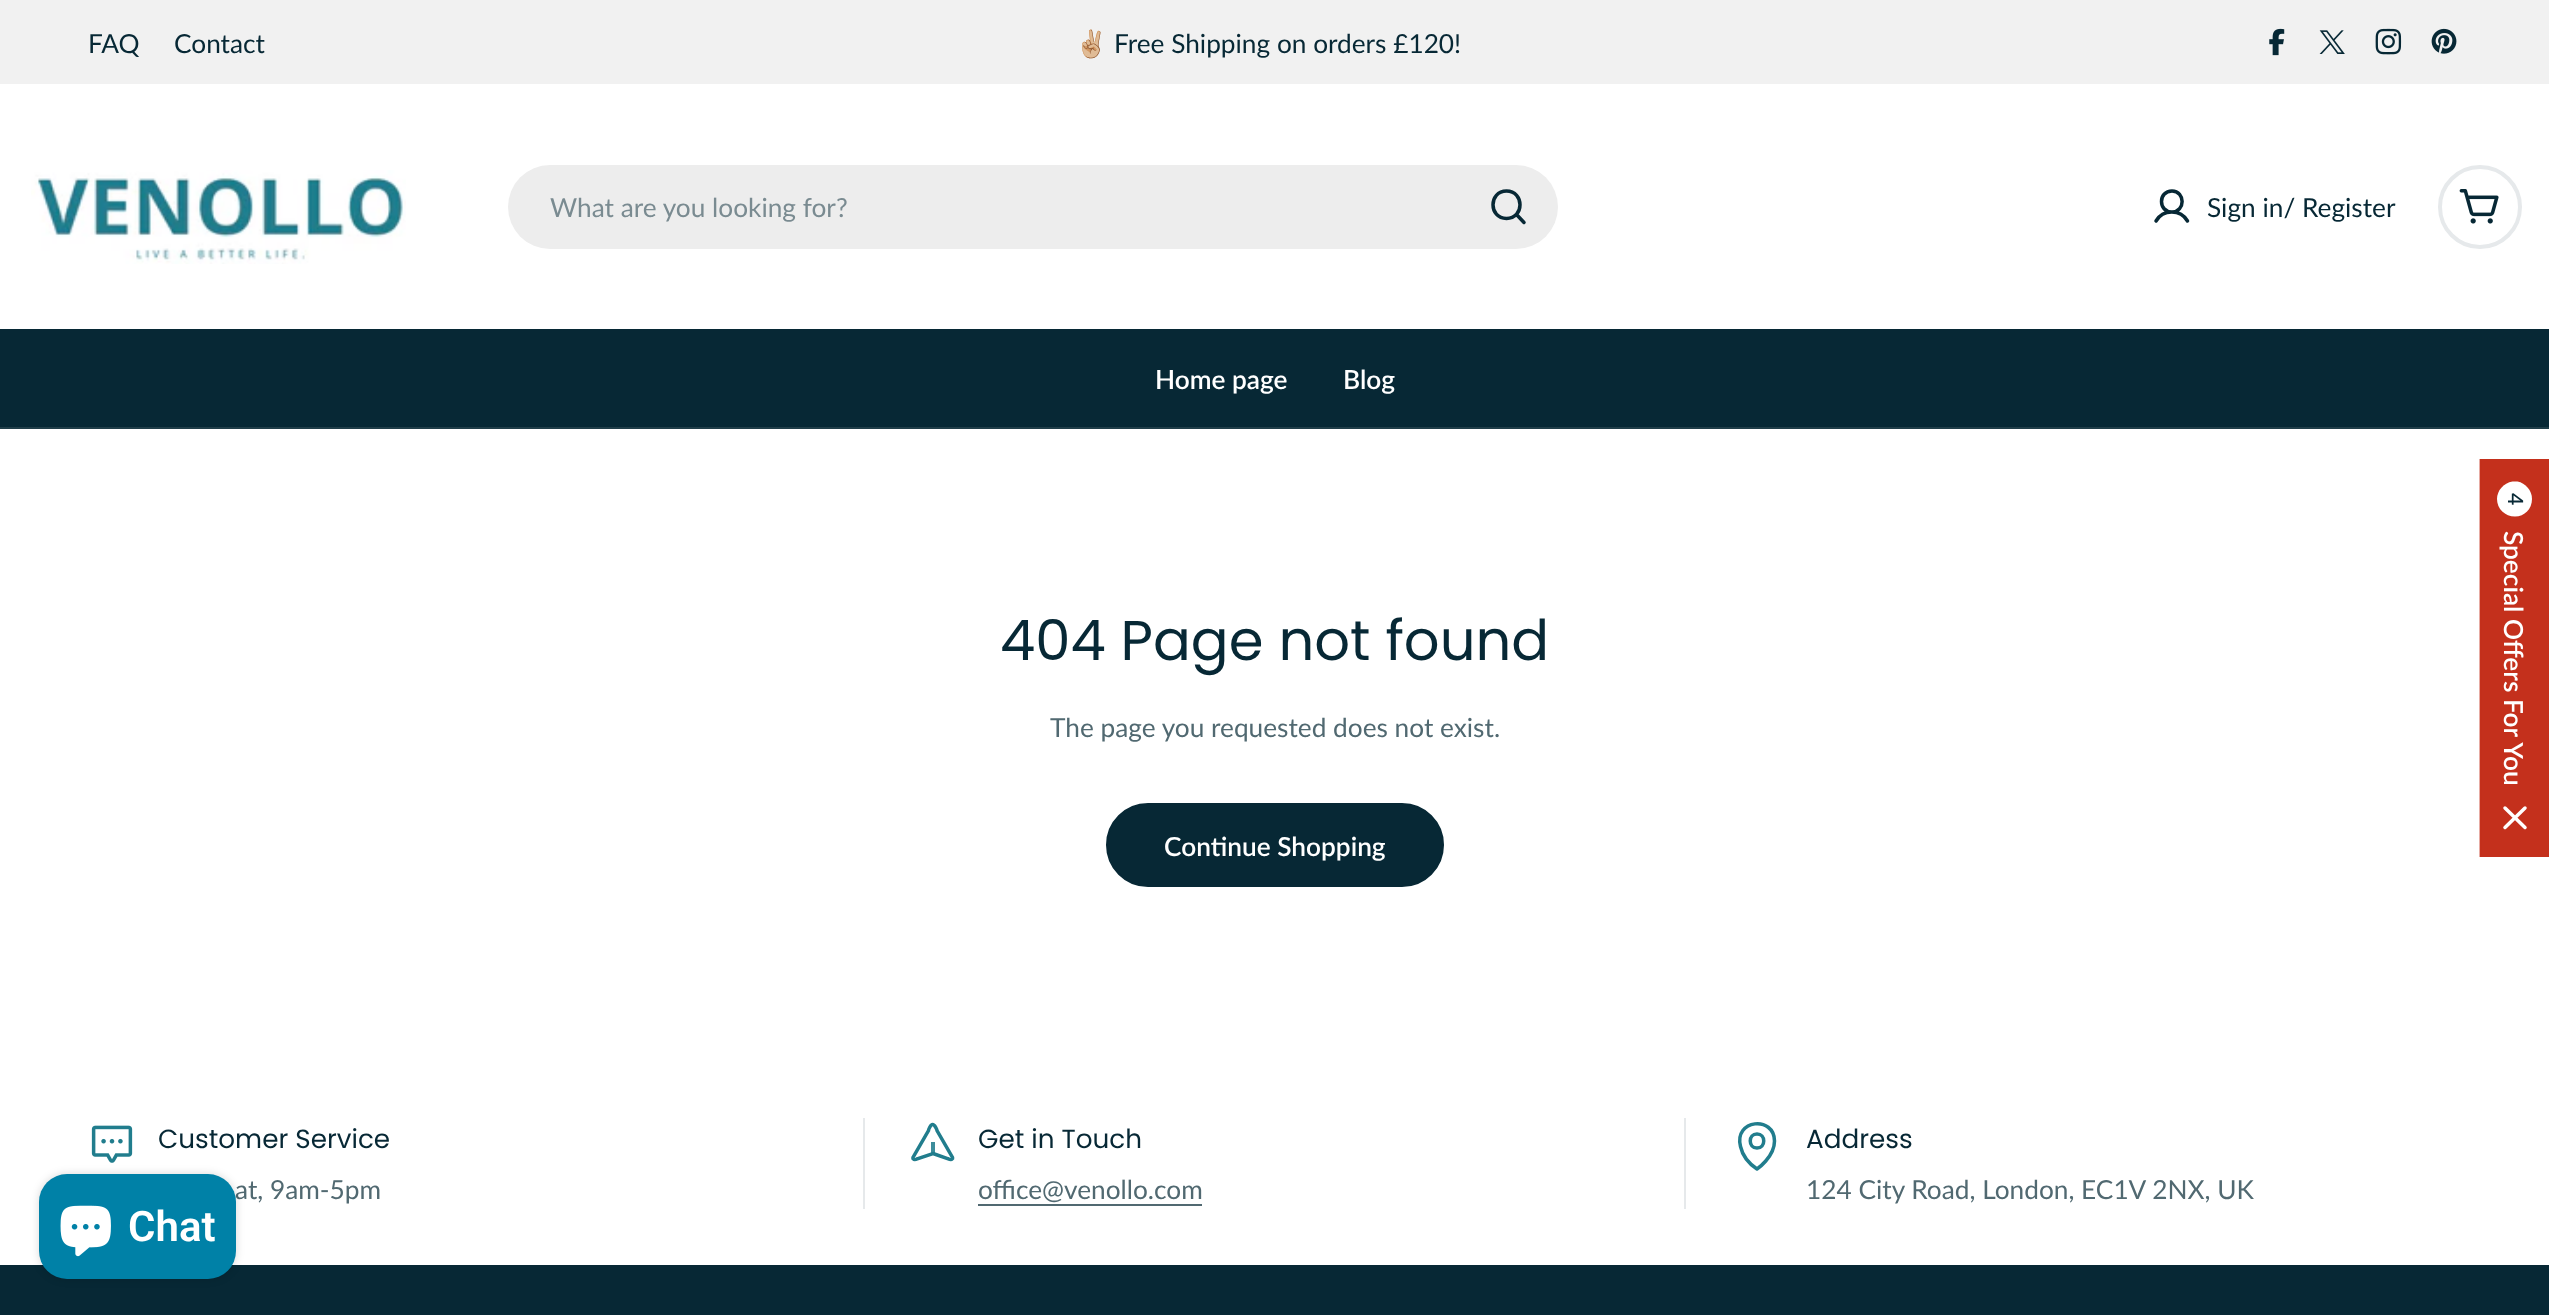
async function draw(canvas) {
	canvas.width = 2549;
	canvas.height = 1315;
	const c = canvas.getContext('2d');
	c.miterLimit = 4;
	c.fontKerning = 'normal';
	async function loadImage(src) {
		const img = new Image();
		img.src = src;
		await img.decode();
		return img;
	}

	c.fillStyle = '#fff';
	c.fillRect(0, 0, 2549, 1315);
	c.fillStyle = '#f1f1f1';
	c.fillRect(0, 0, 2549, 84);
	c.font = '26.25px Lato';
	c.fillStyle = '#072835';
	c.fillText('FAQ', 88, 53);
	c.fillText('Contact', 174, 53);
	c.font = '26.25px Noto Color Emoji';
	c.fillText('✌🏼', 1075, 53);
	c.font = '26.25px Lato';
	c.fillText('Free Shipping on orders £120!', 1114, 53);
	c.drawImage(await loadImage('img1.png'), 2269, 28, 16, 28);
	c.drawImage(await loadImage('img2.png'), 2319, 30, 26, 24);
	c.drawImage(await loadImage('img3.png'), 2375, 28, 27, 27);
	c.drawImage(await loadImage('img4.png'), 2431, 28, 26, 26);
	c.drawImage(await loadImage('img5.png'), 31, 170, 375, 94);
	c.fillStyle = '#ededed';
	c.beginPath();
	c.roundRect(508, 165, 1050, 84, 42);
	c.fill();
	c.fillStyle = '#7a8b91';
	c.fillText('What are you looking for?', 550, 217);
	c.beginPath();
	c.moveTo(1506.5, 218.5);
	c.bezierCurveTo(1524.5, 218.5, 1524.5, 191, 1506.5, 191);
	c.bezierCurveTo(1488.5, 191, 1488.5, 218.5, 1506.5, 218.5);
	c.closePath();
	c.moveTo(1516.5, 214.5);
	c.lineTo(1524, 222.5);
	c.strokeStyle = '#072835';
	c.lineWidth = 3.5;
	c.lineCap = 'round';
	c.lineJoin = 'round';
	c.stroke();
	c.beginPath();
	c.moveTo(2172, 212);
	c.bezierCurveTo(2185.5, 212, 2185.5, 191, 2172, 191);
	c.bezierCurveTo(2158, 191, 2158, 212, 2172, 212);
	c.closePath();
	c.moveTo(2156, 221);
	c.bezierCurveTo(2163, 209, 2180.5, 209, 2187.5, 221);
	c.stroke();
	c.fillStyle = '#072835';
	c.fillText('Sign in/ Register', 2207, 217);
	c.beginPath();
	c.arc(2480, 207, 40, 0, 2 * Math.PI);
	c.strokeStyle = '#e6e9eb';
	c.lineWidth = 4;
	c.stroke();
	c.drawImage(await loadImage('img6.png'), 2459, 189, 40, 35);
	c.fillRect(0, 329, 2549, 98);
	c.fillStyle = '#203e49';
	c.fillRect(0, 427, 2549, 2);
	c.font = '600 26.25px Lato';
	c.fillStyle = '#fff';
	c.fillText('Home page', 1155, 389);
	c.fillText('Blog', 1343, 389);
	c.font = '56px Poppins';
	c.fillStyle = '#072835';
	c.fillText('404 Page not found', 1000, 660);
	c.font = '26.25px Lato';
	c.fillStyle = '#516971';
	c.fillText('The page you requested does not exist.', 1050, 737);
	c.fillStyle = '#072835';
	c.beginPath();
	c.roundRect(1107, 804, 336, 82, 41);
	c.fill();
	c.strokeStyle = '#072835';
	c.lineWidth = 2;
	c.lineJoin = 'miter';
	c.stroke();
	c.font = '600 26.25px Lato';
	c.fillStyle = '#fff';
	c.fillText('Continue Shopping', 1164, 856);
	c.drawImage(await loadImage('img7.png'), 91, 1125, 42, 38);
	c.font = '26.25px Poppins';
	c.fillStyle = '#072835';
	c.fillText('Customer Service', 158, 1148);
	c.font = '26.25px Lato';
	c.fillStyle = '#516971';
	c.fillText('at, 9am-5pm', 235, 1199);
	c.fillStyle = '#e6e9eb';
	c.fillRect(863, 1118, 2, 91);
	c.fillStyle = '#3d8d9b';
	c.fillRect(931, 1142, 4, 12);
	c.beginPath();
	c.moveTo(933, 1153.5);
	c.lineTo(947.5, 1158.5);
	c.bezierCurveTo(948.5, 1159, 951, 1160.5, 952, 1159);
	c.lineTo(952.5, 1158.5);
	c.lineTo(952.5, 1157.5);
	c.lineTo(937, 1130.5);
	c.bezierCurveTo(937, 1130, 935, 1124.5, 932.5, 1124.5);
	c.bezierCurveTo(930.5, 1124.5, 928.5, 1130, 928.5, 1130.5);
	c.lineTo(913, 1157.5);
	c.lineTo(913, 1158.5);
	c.lineTo(913.5, 1159);
	c.bezierCurveTo(914.5, 1160.5, 917, 1159, 918, 1158.5);
	c.closePath();
	c.strokeStyle = '#217d8d';
	c.lineWidth = 3.5;
	c.lineCap = 'butt';
	c.stroke();
	c.font = '26.25px Poppins';
	c.fillStyle = '#072835';
	c.fillText('Get in Touch', 978, 1148);
	c.font = '26.25px Lato';
	c.fillStyle = '#516971';
	c.fillText('office@venollo.com', 978, 1199);
	c.fillRect(978, 1204, 224, 2);
	c.fillStyle = '#e6e9eb';
	c.fillRect(1684, 1118, 2, 91);
	c.beginPath();
	c.moveTo(1757, 1148);
	c.bezierCurveTo(1766, 1148, 1766, 1134, 1757, 1134);
	c.bezierCurveTo(1748, 1134, 1748, 1148, 1757, 1148);
	c.closePath();
	c.moveTo(1774.5, 1141);
	c.bezierCurveTo(1774.5, 1157, 1757, 1169, 1757, 1169);
	c.bezierCurveTo(1749.5, 1164, 1742.5, 1155.5, 1740.5, 1146.5);
	c.bezierCurveTo(1733.5, 1119, 1774.5, 1115.5, 1774.5, 1141);
	c.closePath();
	c.lineCap = 'round';
	c.lineJoin = 'round';
	c.stroke();
	c.font = '26.25px Poppins';
	c.fillStyle = '#072835';
	c.fillText('Address', 1806, 1148);
	c.font = '26.25px Lato';
	c.fillStyle = '#516971';
	c.fillText('124 City Road, London, EC1V 2NX, UK', 1806, 1199);
	c.fillStyle = '#072835';
	c.fillRect(0, 1265, 2549, 50);
	c.fillStyle = '#c4301c';
	c.fillRect(2480, 459, 69, 398);
	c.beginPath();
	c.moveTo(2480.5, 856);
	c.lineTo(2480.5, 460);
	c.lineTo(2549, 460);
	c.lineTo(2549, 856);
	c.closePath();
	c.strokeStyle = '#c4301c';
	c.lineWidth = 1.8;
	c.lineCap = 'butt';
	c.lineJoin = 'miter';
	c.stroke();
	c.fillStyle = '#fff';
	c.beginPath();
	c.moveTo(2532, 499);
	c.bezierCurveTo(2532, 509, 2524.5, 516.5, 2515, 516.5);
	c.bezierCurveTo(2505, 516.5, 2497, 509, 2497, 499);
	c.bezierCurveTo(2497, 490.5, 2503.5, 483, 2512.5, 481.5);
	c.lineTo(2517.5, 481.5);
	c.bezierCurveTo(2525.5, 483, 2532, 490.5, 2532, 499);
	c.closePath();
	c.fill();
	c.font = '600 21px Lato';
	c.fillStyle = '#072835';
	c.save();
	c.translate(2508, 493);
	c.rotate(90 * Math.PI / 180);
	c.fillText('4', 0, 0);
	c.restore();
	c.font = '600 26.25px Lato';
	c.fillStyle = '#fff';
	c.save();
	c.translate(2504, 531);
	c.rotate(90 * Math.PI / 180);
	c.fillText('Special Offers For You', 0, 0);
	c.restore();
	c.beginPath();
	c.moveTo(2525, 827.5);
	c.lineTo(2505, 808);
	c.moveTo(2505, 827.5);
	c.lineTo(2525, 808);
	c.strokeStyle = '#fff';
	c.lineWidth = 3.5;
	c.lineCap = 'round';
	c.lineJoin = 'round';
	c.stroke();
	c.fillStyle = '#00000026';
	c.filter = 'blur(4.5px)';
	c.beginPath();
	c.roundRect(39, 1174, 197, 105, 28);
	c.fill();
	c.filter = 'none';
	c.fillStyle = '#0081a7';
	c.beginPath();
	c.roundRect(39, 1174, 197, 105, 28);
	c.fill();
	c.drawImage(await loadImage('img8.png'), 60, 1205, 51, 52);
	c.font = '600 42px Roboto';
	c.fillStyle = '#fff';
	c.fillText('Chat', 128, 1241);
}

draw(document.querySelector('canvas'));
